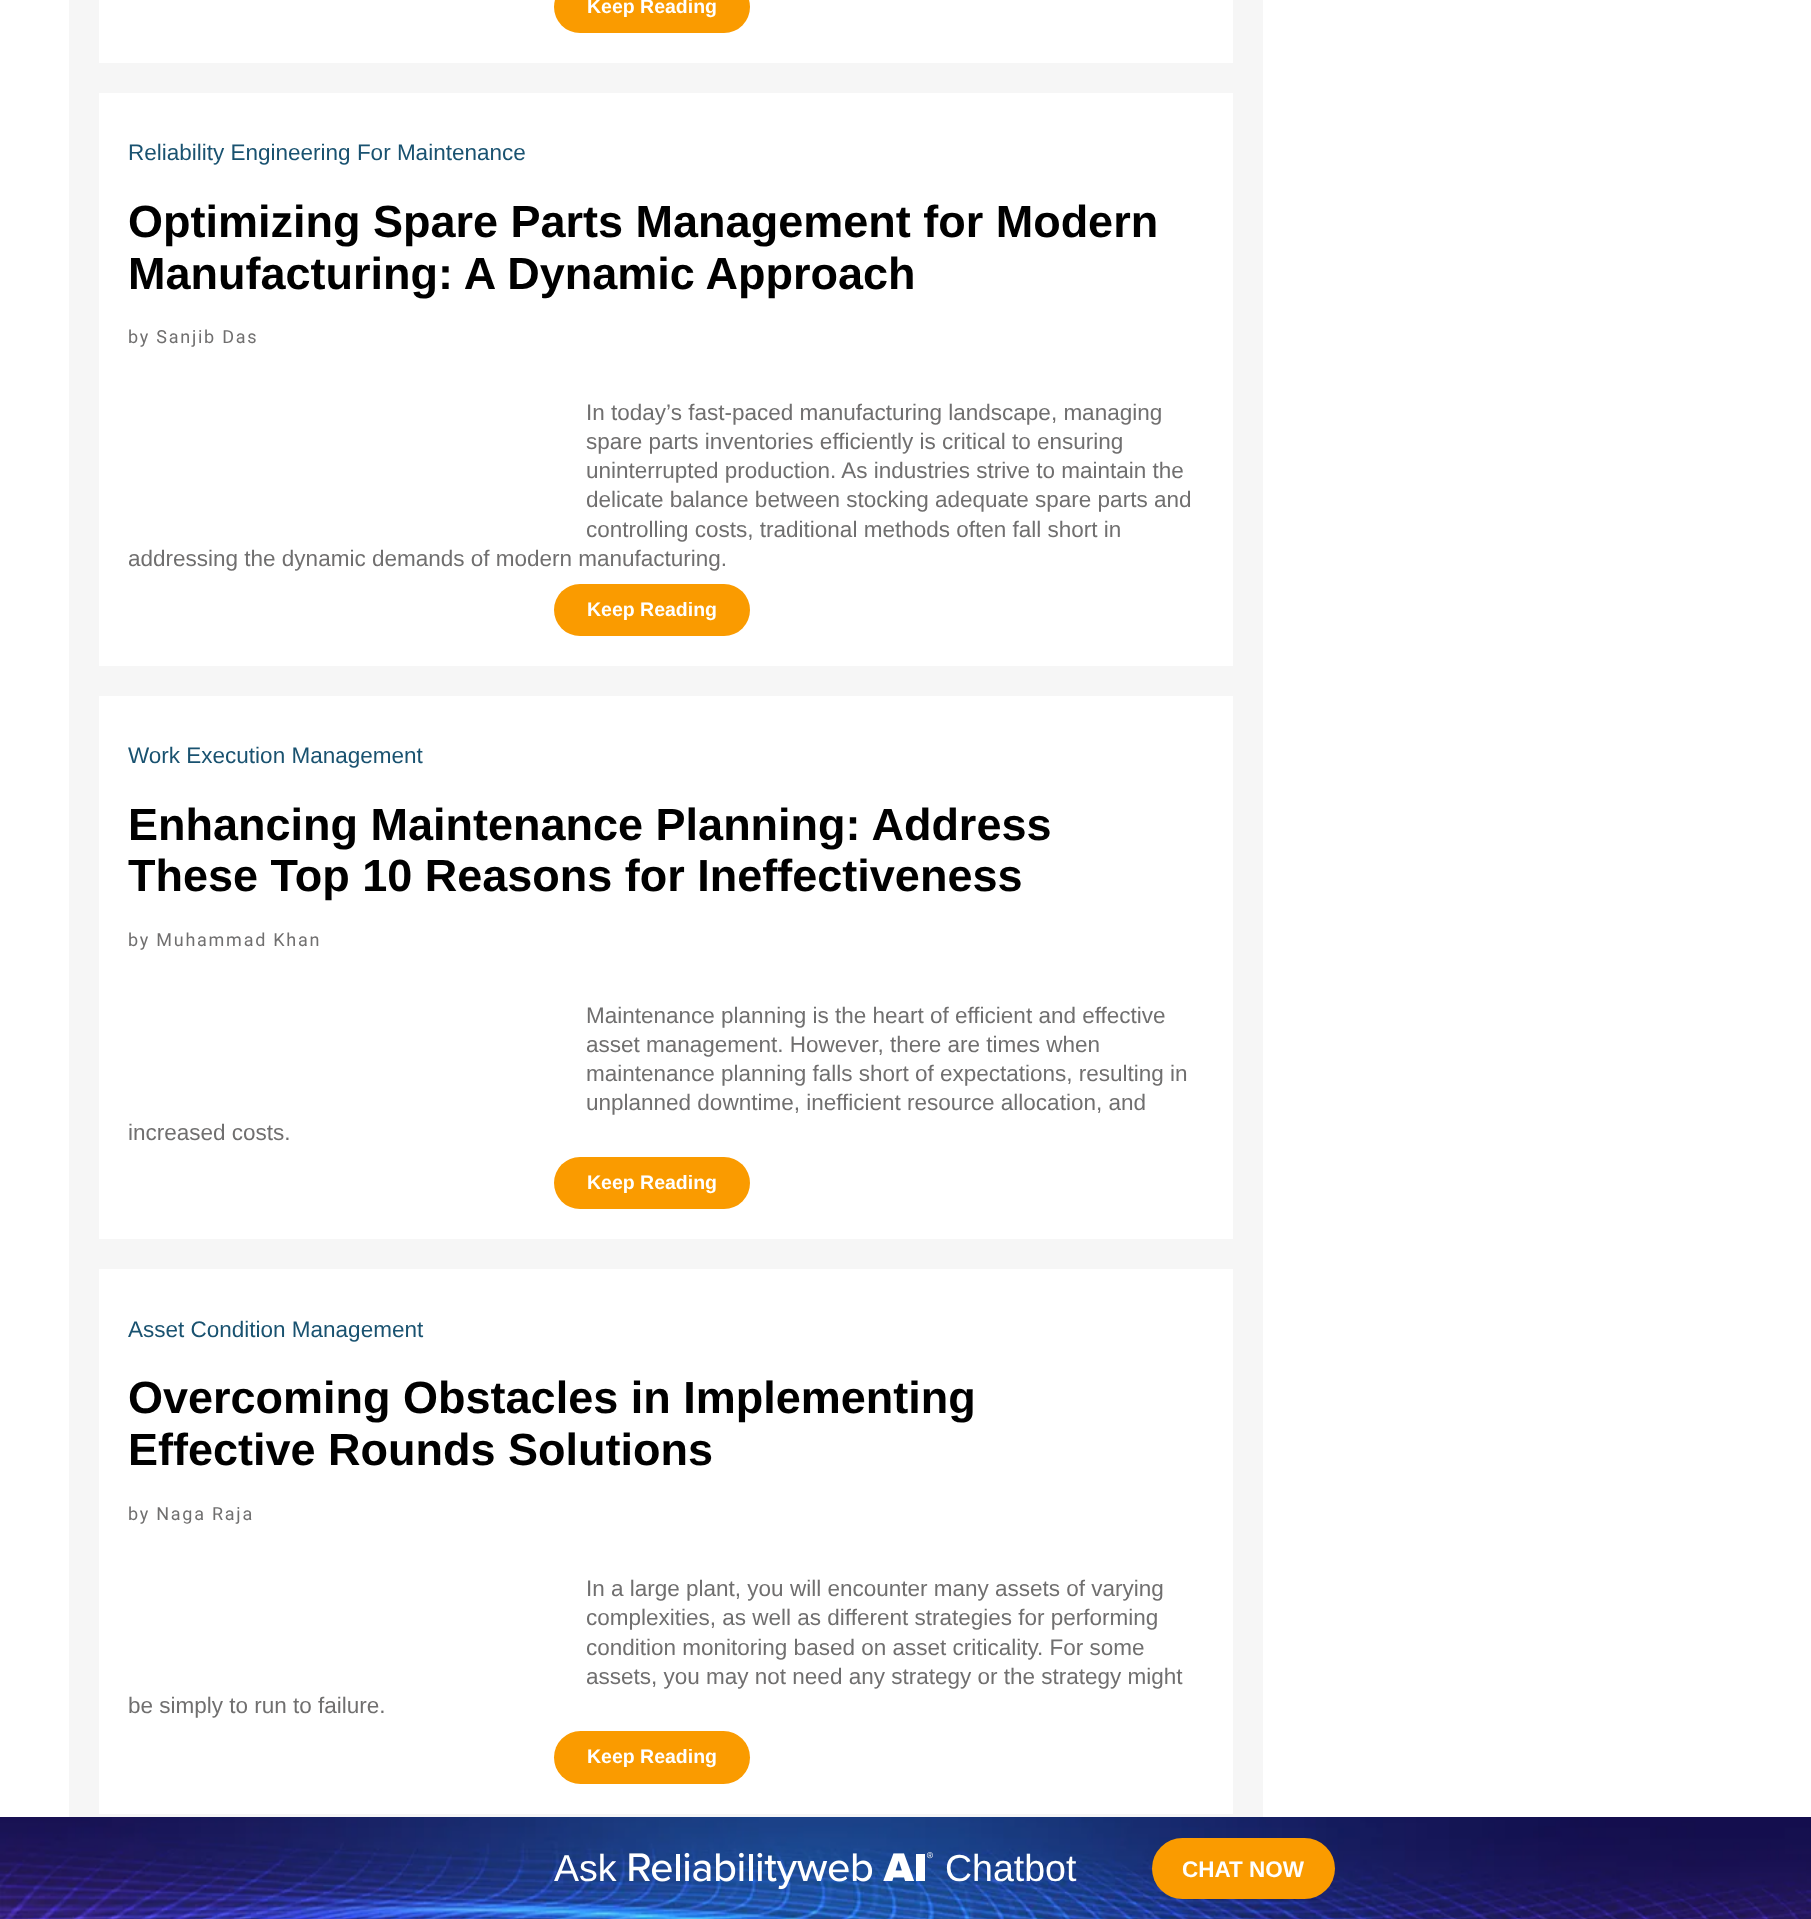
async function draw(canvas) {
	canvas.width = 1811;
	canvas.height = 1919;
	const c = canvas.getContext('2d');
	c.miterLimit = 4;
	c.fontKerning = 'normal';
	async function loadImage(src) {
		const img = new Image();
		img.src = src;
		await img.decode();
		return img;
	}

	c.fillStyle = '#fff';
	c.fillRect(0, 0, 1811, 1919);
	c.fillStyle = '#f6f6f6';
	c.fillRect(69, 0, 1194, 1817);
	c.fillStyle = '#fff';
	c.fillRect(99, 0, 1134, 63);
	c.fillStyle = '#fa9b00';
	c.beginPath();
	c.roundRect(554, -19, 196, 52, 26);
	c.fill();
	c.font = 'bold 19.5px Liberation Sans';
	c.fillStyle = '#fff';
	c.fillText('Keep Reading', 587, 13);
	c.fillRect(99, 93, 1134, 573);
	c.font = '22.5px Liberation Sans';
	c.fillStyle = '#195270';
	c.fillText('Reliability Engineering For Maintenance', 128, 160);
	c.font = 'bold 45px Liberation Sans';
	c.fillStyle = '#000';
	c.fillText('Optimizing Spare Parts Management for Modern', 128, 237);
	c.fillText('Manufacturing: A Dynamic Approach', 128, 289);
	c.fillStyle = '#fa9b00';
	c.beginPath();
	c.roundRect(554, 584, 196, 52, 26);
	c.fill();
	c.font = 'bold 19.5px Liberation Sans';
	c.fillStyle = '#fff';
	c.fillText('Keep Reading', 587, 616);
	c.letterSpacing = '1.75px';
	c.font = '18px Roboto';
	c.fillStyle = '#706f6f';
	c.fillText('by Sanjib Das', 128, 343);
	c.letterSpacing = '0px';
	c.font = '22.5px Liberation Sans';
	for (const [text, x, y] of [
		['In today’s fast-paced manufacturing landscape, managing', 586, 420],
		['spare parts inventories efficiently is critical to ensuring', 586, 449],
		['uninterrupted production. As industries strive to maintain the', 586, 478],
		['delicate balance between stocking adequate spare parts and', 586, 507],
		['controlling costs, traditional methods often fall short in', 586, 537],
		['addressing the dynamic demands of modern manufacturing.', 128, 566],
	]) {
		c.fillText(text, x, y);
	}
	c.fillStyle = '#fff';
	c.fillRect(99, 696, 1134, 543);
	c.fillStyle = '#195270';
	c.fillText('Work Execution Management', 128, 763);
	c.font = 'bold 45px Liberation Sans';
	c.fillStyle = '#000';
	c.fillText('Enhancing Maintenance Planning: Address', 128, 840);
	c.fillText('These Top 10 Reasons for Ineffectiveness', 128, 891);
	c.fillStyle = '#fa9b00';
	c.beginPath();
	c.roundRect(554, 1157, 196, 52, 26);
	c.fill();
	c.font = 'bold 19.5px Liberation Sans';
	c.fillStyle = '#fff';
	c.fillText('Keep Reading', 587, 1189);
	c.letterSpacing = '1.75px';
	c.font = '18px Roboto';
	c.fillStyle = '#706f6f';
	c.fillText('by Muhammad Khan', 128, 946);
	c.letterSpacing = '0px';
	c.font = '22.5px Liberation Sans';
	for (const [text, x, y] of [
		['Maintenance planning is the heart of efficient and effective', 586, 1023],
		['asset management. However, there are times when', 586, 1052],
		['maintenance planning falls short of expectations, resulting in', 586, 1081],
		['unplanned downtime, inefficient resource allocation, and', 586, 1110],
		['increased costs.', 128, 1140],
	]) {
		c.fillText(text, x, y);
	}
	c.fillStyle = '#fff';
	c.fillRect(99, 1269, 1134, 545);
	c.fillStyle = '#195270';
	c.fillText('Asset Condition Management', 128, 1337);
	c.font = 'bold 45px Liberation Sans';
	c.fillStyle = '#000';
	c.fillText('Overcoming Obstacles in Implementing', 128, 1413);
	c.fillText('Effective Rounds Solutions', 128, 1465);
	c.fillStyle = '#fa9b00';
	c.beginPath();
	c.roundRect(554, 1731, 196, 53, 26.5);
	c.fill();
	c.font = 'bold 19.5px Liberation Sans';
	c.fillStyle = '#fff';
	c.fillText('Keep Reading', 587, 1763);
	c.letterSpacing = '1.75px';
	c.font = '18px Roboto';
	c.fillStyle = '#706f6f';
	c.fillText('by Naga Raja', 128, 1520);
	c.letterSpacing = '0px';
	c.font = '22.5px Liberation Sans';
	for (const [text, x, y] of [
		['In a large plant, you will encounter many assets of varying', 586, 1596],
		['complexities, as well as different strategies for performing', 586, 1625],
		['condition monitoring based on asset criticality. For some', 586, 1655],
		['assets, you may not need any strategy or the strategy might', 586, 1684],
		['be simply to run to failure.', 128, 1713],
	]) {
		c.fillText(text, x, y);
	}
	c.drawImage(await loadImage('img1.png'), 0, 1817, 1811, 102);
	c.font = '37.5px Liberation Sans';
	c.fillStyle = '#fff';
	c.fillText('Ask', 554, 1881);
	c.drawImage(await loadImage('img2.png'), 629, 1852, 304, 38);
	c.fillText('Chatbot', 945, 1881);
	c.fillStyle = '#fa9b00';
	c.beginPath();
	c.roundRect(1152, 1838, 183, 61, 30.5);
	c.fill();
	c.font = 'bold 22.5px Liberation Sans';
	c.fillStyle = '#fff';
	c.fillText('CHAT NOW', 1182, 1877);
}

draw(document.querySelector('canvas'));
